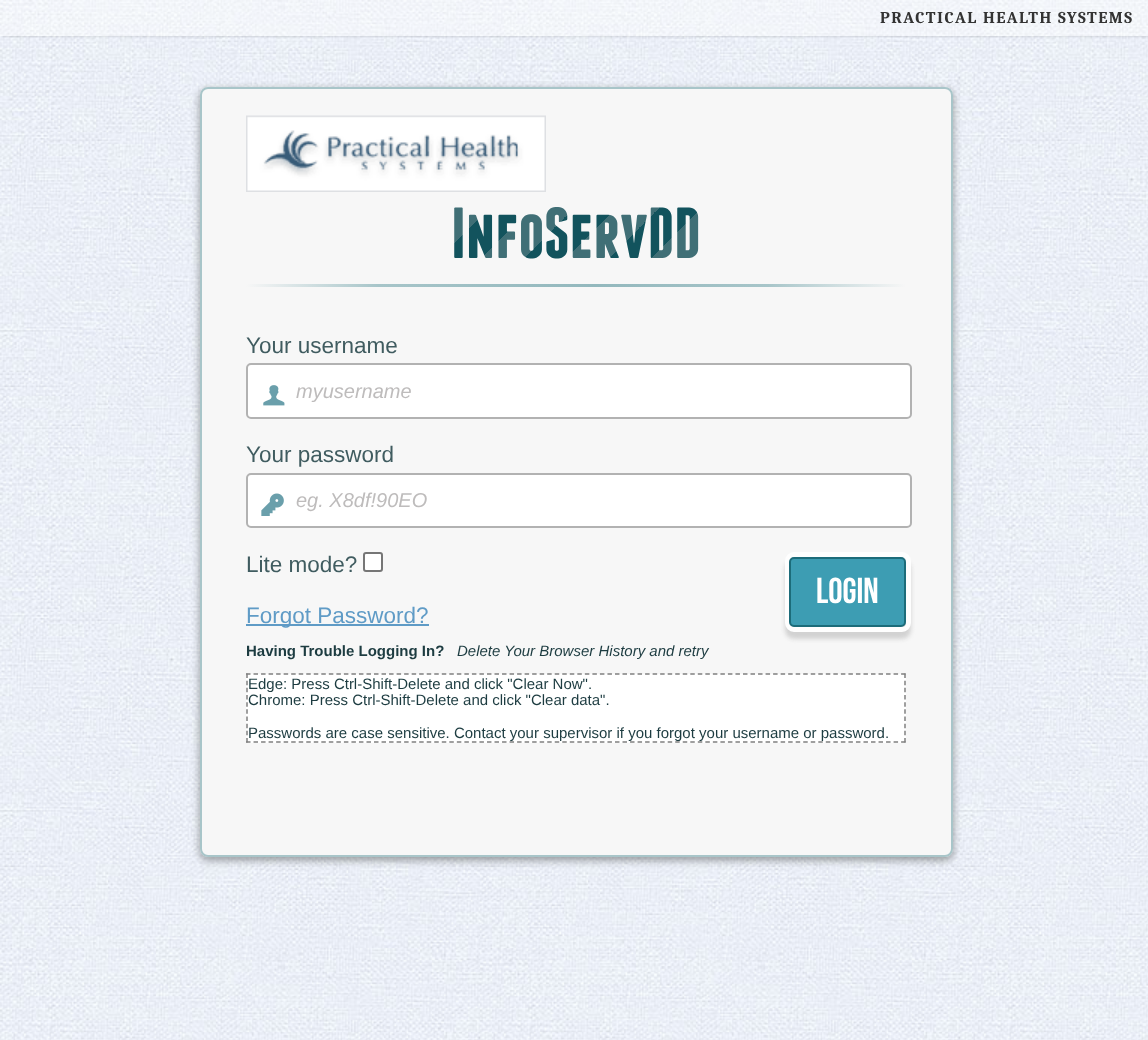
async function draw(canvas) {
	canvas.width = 1148;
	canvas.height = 1040;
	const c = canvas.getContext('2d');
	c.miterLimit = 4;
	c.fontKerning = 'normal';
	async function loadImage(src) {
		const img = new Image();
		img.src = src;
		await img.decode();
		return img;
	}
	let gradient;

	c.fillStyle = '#fff';
	c.fillRect(0, 0, 1148, 1040);
	c.drawImage(await loadImage('img1.png'), 0, 0, 1148, 1040);
	c.save();
	c.beginPath();
	c.rect(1, 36, 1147, 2);
	c.clip();
	c.fillStyle = '#00000033';
	c.filter = 'blur(1.5px)';
	c.beginPath();
	c.rect(2, 0, 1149, 36);
	c.fill();
	c.filter = 'none';
	c.restore();
	c.fillStyle = '#ffffff66';
	c.fillRect(0, 0, 1148, 36);
	c.letterSpacing = '1.5px';
	c.font = 'bold 16.5px Caladea';
	c.fillStyle = '#333';
	c.fillText('PRACTICAL HEALTH SYSTEMS', 880, 23);
	c.fillStyle = '#696c6db3';
	c.filter = 'blur(4px)';
	c.beginPath();
	c.roundRect(200, 90, 753, 770, 8);
	c.fill();
	c.filter = 'none';
	c.fillStyle = '#f7f7f7';
	c.beginPath();
	c.roundRect(200, 87, 753, 770, 8);
	c.fill();
	c.beginPath();
	c.roundRect(201, 88, 751, 768, 7);
	c.strokeStyle = '#93b8bdcc';
	c.lineWidth = 2;
	c.stroke();
	c.drawImage(await loadImage('img2.png'), 246, 115, 300, 77);
	c.letterSpacing = '0px';
	c.font = 'bold 72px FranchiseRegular';
	gradient = c.createLinearGradient(377, 65, 802, 490);
	gradient.addColorStop(0, '#12535d');
	gradient.addColorStop(0.05, '#12535d');
	gradient.addColorStop(0.05, '#406f76');
	gradient.addColorStop(0.1, '#406f76');
	gradient.addColorStop(0.1, '#12535d');
	gradient.addColorStop(0.15, '#12535d');
	gradient.addColorStop(0.15, '#406f76');
	gradient.addColorStop(0.2, '#406f76');
	gradient.addColorStop(0.2, '#12535d');
	gradient.addColorStop(0.25, '#12535d');
	gradient.addColorStop(0.25, '#406f76');
	gradient.addColorStop(0.3, '#406f76');
	gradient.addColorStop(0.3, '#12535d');
	gradient.addColorStop(0.35, '#12535d');
	gradient.addColorStop(0.35, '#406f76');
	gradient.addColorStop(0.4, '#406f76');
	gradient.addColorStop(0.4, '#12535d');
	gradient.addColorStop(0.45, '#12535d');
	gradient.addColorStop(0.45, '#406f76');
	gradient.addColorStop(0.5, '#406f76');
	gradient.addColorStop(0.5, '#12535d');
	gradient.addColorStop(0.55, '#12535d');
	gradient.addColorStop(0.55, '#406f76');
	gradient.addColorStop(0.6, '#406f76');
	gradient.addColorStop(0.6, '#12535d');
	gradient.addColorStop(0.65, '#12535d');
	gradient.addColorStop(0.65, '#406f76');
	gradient.addColorStop(0.7, '#406f76');
	gradient.addColorStop(0.7, '#12535d');
	gradient.addColorStop(0.75, '#12535d');
	gradient.addColorStop(0.75, '#406f76');
	gradient.addColorStop(0.8, '#406f76');
	gradient.addColorStop(0.8, '#12535d');
	gradient.addColorStop(0.85, '#12535d');
	gradient.addColorStop(0.85, '#406f76');
	gradient.addColorStop(0.9, '#406f76');
	gradient.addColorStop(0.9, '#12535d');
	gradient.addColorStop(0.95, '#12535d');
	gradient.addColorStop(0.95, '#406f76');
	gradient.addColorStop(1, '#406f76');
	gradient.addColorStop(1, '#12535d');
	c.fillStyle = gradient;
	c.fillText('InfoServDD', 451, 258);
	gradient = c.createLinearGradient(246, 285, 906, 285);
	gradient.addColorStop(0, '#f7f7f7');
	gradient.addColorStop(0.2, '#a7c5c9');
	gradient.addColorStop(0.53, '#93b8bd');
	gradient.addColorStop(0.79, '#a7c5c9');
	gradient.addColorStop(1, '#f7f7f7');
	c.fillStyle = gradient;
	c.fillRect(246, 284, 660, 3);
	c.font = '22.5px Liberation Sans';
	c.fillStyle = '#405c60';
	c.fillText('Your username', 246, 353);
	c.fillStyle = '#fff';
	c.beginPath();
	c.roundRect(247, 364, 664, 54, 4);
	c.fill();
	c.strokeStyle = '#b2b2b2';
	c.stroke();
	c.drawImage(await loadImage('img3.png'), 263, 385, 22, 21);
	c.save();
	c.beginPath();
	c.rect(296, 380, 607, 22);
	c.clip();
	c.font = 'italic 20px Liberation Sans';
	c.fillStyle = '#bebcbc';
	c.fillText('myusername', 296, 398);
	c.restore();
	c.fillStyle = '#405c60';
	c.fillText('Your password', 246, 462);
	c.fillStyle = '#fff';
	c.beginPath();
	c.roundRect(247, 474, 664, 53, 4);
	c.fill();
	c.stroke();
	c.drawImage(await loadImage('img4.png'), 261, 493, 23, 23);
	c.font = 'italic 20px Liberation Sans';
	c.fillStyle = '#bebcbc';
	c.fillText('eg. X8df!90EO', 296, 507);
	c.font = '22.5px Liberation Sans';
	c.fillStyle = '#405c60';
	c.fillText('Lite mode?', 246, 572);
	c.fillStyle = '#fff';
	c.beginPath();
	c.roundRect(364, 553, 18, 18, 2);
	c.fill();
	c.strokeStyle = '#767676';
	c.stroke();
	c.fillStyle = '#5f9bc6';
	c.fillRect(246, 624, 183, 2);
	c.fillText('Forgot Password?', 246, 623);
	c.fillStyle = '#d2d2d2';
	c.filter = 'blur(2px)';
	c.beginPath();
	c.roundRect(785, 560, 126, 79, 9);
	c.fill();
	c.filter = 'none';
	c.beginPath();
	c.roundRect(787.5, 554.5, 121, 75, 6.5);
	c.strokeStyle = '#fefefe';
	c.lineWidth = 5;
	c.stroke();
	c.fillStyle = '#3d9db3';
	c.beginPath();
	c.roundRect(790, 558, 115, 68, 4);
	c.fill();
	c.strokeStyle = '#1c6c7a';
	c.lineWidth = 2;
	c.stroke();
	c.font = '36px Bebas Neue';
	c.fillStyle = '#fff';
	c.fillText('Login', 816, 603);
	c.font = 'bold 15px Liberation Sans';
	c.fillStyle = '#1d3c41';
	c.fillText('Having Trouble Logging In?', 246, 656);
	c.font = 'italic 15px Liberation Sans';
	c.fillText('Delete Your Browser History and retry', 457, 656);
	c.fillStyle = '#fff';
	c.fillRect(246, 674, 660, 69);
	c.beginPath();
	c.moveTo(246, 674);
	c.lineTo(906, 674);
	c.strokeStyle = '#808080';
	c.lineWidth = 1.5;
	c.setLineDash([4.5, 3.03]);
	c.stroke();
	c.beginPath();
	c.moveTo(905, 673.5);
	c.lineTo(905, 742.5);
	c.setLineDash([4.5, 2.67]);
	c.stroke();
	c.beginPath();
	c.moveTo(246, 742);
	c.lineTo(906, 742);
	c.setLineDash([4.5, 3.03]);
	c.stroke();
	c.beginPath();
	c.moveTo(247, 673.5);
	c.lineTo(247, 742.5);
	c.setLineDash([4.5, 2.67]);
	c.stroke();
	c.font = '15px Liberation Sans';
	c.fillStyle = '#1d3c41';
	for (const [text, x, y] of [
		['Edge: Press Ctrl-Shift-Delete and click "Clear Now".', 248, 689],
		['Chrome: Press Ctrl-Shift-Delete and click "Clear data".', 248, 705],
		['Passwords are case sensitive. Contact your supervisor if you forgot your username or password.', 248, 738],
	]) {
		c.fillText(text, x, y);
	}
}

draw(document.querySelector('canvas'));
